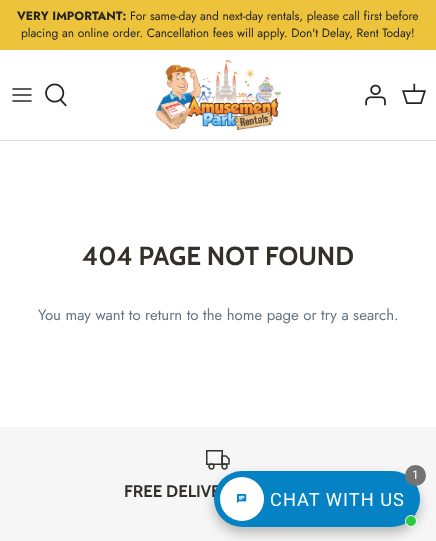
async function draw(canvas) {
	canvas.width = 436;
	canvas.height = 541;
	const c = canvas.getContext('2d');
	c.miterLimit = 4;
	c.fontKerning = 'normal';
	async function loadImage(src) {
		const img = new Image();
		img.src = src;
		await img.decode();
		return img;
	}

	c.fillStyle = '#fff';
	c.fillRect(0, 0, 436, 541);
	c.fillStyle = '#edc33b';
	c.fillRect(0, 0, 436, 50);
	c.font = 'bold 12px Jost';
	c.fillStyle = '#232323';
	c.fillText('VERY IMPORTANT:', 17, 20);
	c.font = '12px Jost';
	c.fillText('For same-day and next-day rentals, please call first before', 130, 20);
	c.fillText('placing an online order. Cancellation fees will apply. Don\'t Delay, Rent Today!', 21, 37);
	c.fillStyle = '#e2e2e2';
	c.fillRect(0, 140, 436, 1);
	c.drawImage(await loadImage('img1.png'), 12, 88, 20, 14);
	c.drawImage(await loadImage('img2.png'), 45, 83, 22, 24);
	c.drawImage(await loadImage('img3.png'), 155, 59, 126, 72);
	c.drawImage(await loadImage('img4.png'), 365, 84, 21, 22);
	c.drawImage(await loadImage('img5.png'), 402, 83, 24, 21);
	c.font = 'bold 26px Cabin';
	c.fillStyle = '#333029';
	c.fillText('404 PAGE NOT FOUND', 82, 265);
	c.font = '15px Jost';
	c.fillStyle = '#637381';
	c.fillText('You may want to return to the home page or try a search.', 38, 320);
	c.fillStyle = '#f6f6f6';
	c.fillRect(0, 427, 436, 114);
	c.drawImage(await loadImage('img6.png'), 206, 450, 24, 20);
	c.font = 'bold 16.75px Cabin';
	c.fillStyle = '#333029';
	c.fillText('FREE DELIVE', 124, 497);
	c.fillStyle = '#00000040';
	c.filter = 'blur(6px)';
	c.beginPath();
	c.roundRect(214, 477, 206, 56, 28);
	c.fill();
	c.filter = 'none';
	c.fillStyle = '#0482c4';
	c.beginPath();
	c.roundRect(214, 471, 206, 56, 28);
	c.fill();
	c.fillStyle = '#737373';
	c.beginPath();
	c.arc(415.5, 475.5, 10.5, 0, 2 * Math.PI);
	c.fill();
	c.font = '12px Roboto';
	c.fillStyle = '#fff';
	c.fillText('1', 412, 479);
	c.beginPath();
	c.arc(242, 499, 22, 0, 2 * Math.PI);
	c.fill();
	c.drawImage(await loadImage('img7.png'), 237, 494, 10, 10);
	c.save();
	c.beginPath();
	c.rect(270, 493, 150, 13);
	c.clip();
	c.letterSpacing = '1px';
	c.font = '18.25px Roboto';
	c.fillText('CHAT WITH US', 270, 506);
	c.restore();
	c.fillStyle = '#27ca40';
	c.beginPath();
	c.arc(411, 521, 5.5, 0, 2 * Math.PI);
	c.fill();
	c.strokeStyle = '#fff';
	c.stroke();
}

draw(document.querySelector('canvas'));
